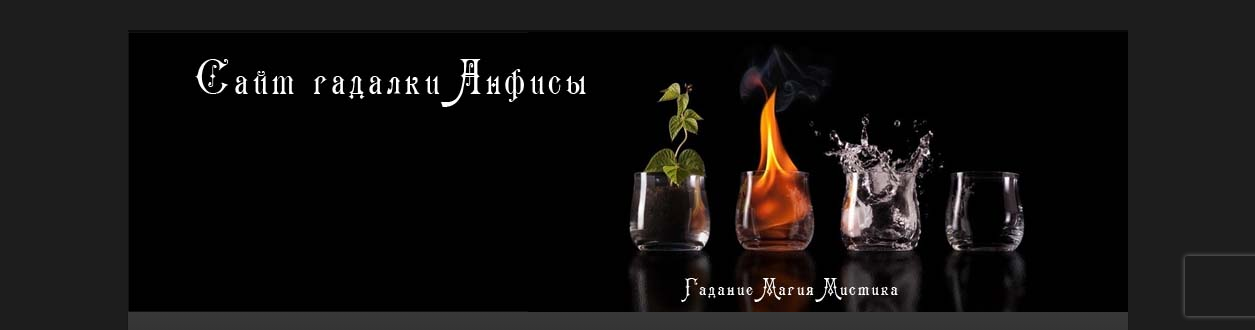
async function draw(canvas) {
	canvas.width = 1255;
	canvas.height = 330;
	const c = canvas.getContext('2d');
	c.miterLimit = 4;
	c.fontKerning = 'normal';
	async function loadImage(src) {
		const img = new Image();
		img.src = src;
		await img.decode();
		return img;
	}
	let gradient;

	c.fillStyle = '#1d1d1d';
	c.fillRect(0, 0, 1255, 330);
	c.fillStyle = '#0a0a0a';
	c.fillRect(128, 30, 1000, 2);
	c.fillStyle = '#00000066';
	c.filter = 'blur(1px)';
	c.beginPath();
	c.rect(128, 313, 1000, 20);
	c.fill();
	c.filter = 'none';
	c.drawImage(await loadImage('img1.png'), 128, 32, 1000, 280);
	gradient = c.createLinearGradient(628, 312, 628, 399);
	gradient.addColorStop(0, '#383838');
	gradient.addColorStop(1, '#272727');
	c.fillStyle = gradient;
	c.fillRect(128, 312, 1000, 18);
	c.save();
	c.beginPath();
	c.moveTo(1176, 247);
	c.lineTo(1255, 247);
	c.lineTo(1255, 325);
	c.lineTo(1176, 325);
	c.closePath();
	c.moveTo(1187, 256);
	c.lineTo(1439, 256);
	c.bezierCurveTo(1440, 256, 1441, 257, 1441, 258);
	c.lineTo(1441, 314);
	c.bezierCurveTo(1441, 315, 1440, 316, 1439, 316);
	c.lineTo(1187, 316);
	c.bezierCurveTo(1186, 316, 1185, 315, 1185, 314);
	c.lineTo(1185, 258);
	c.bezierCurveTo(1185, 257, 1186, 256, 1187, 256);
	c.closePath();
	c.clip('evenodd');
	c.fillStyle = '#808080';
	c.filter = 'blur(2.5px)';
	c.beginPath();
	c.roundRect(1185, 256, 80, 60, 2);
	c.fill();
	c.filter = 'none';
	c.restore();
}

draw(document.querySelector('canvas'));
